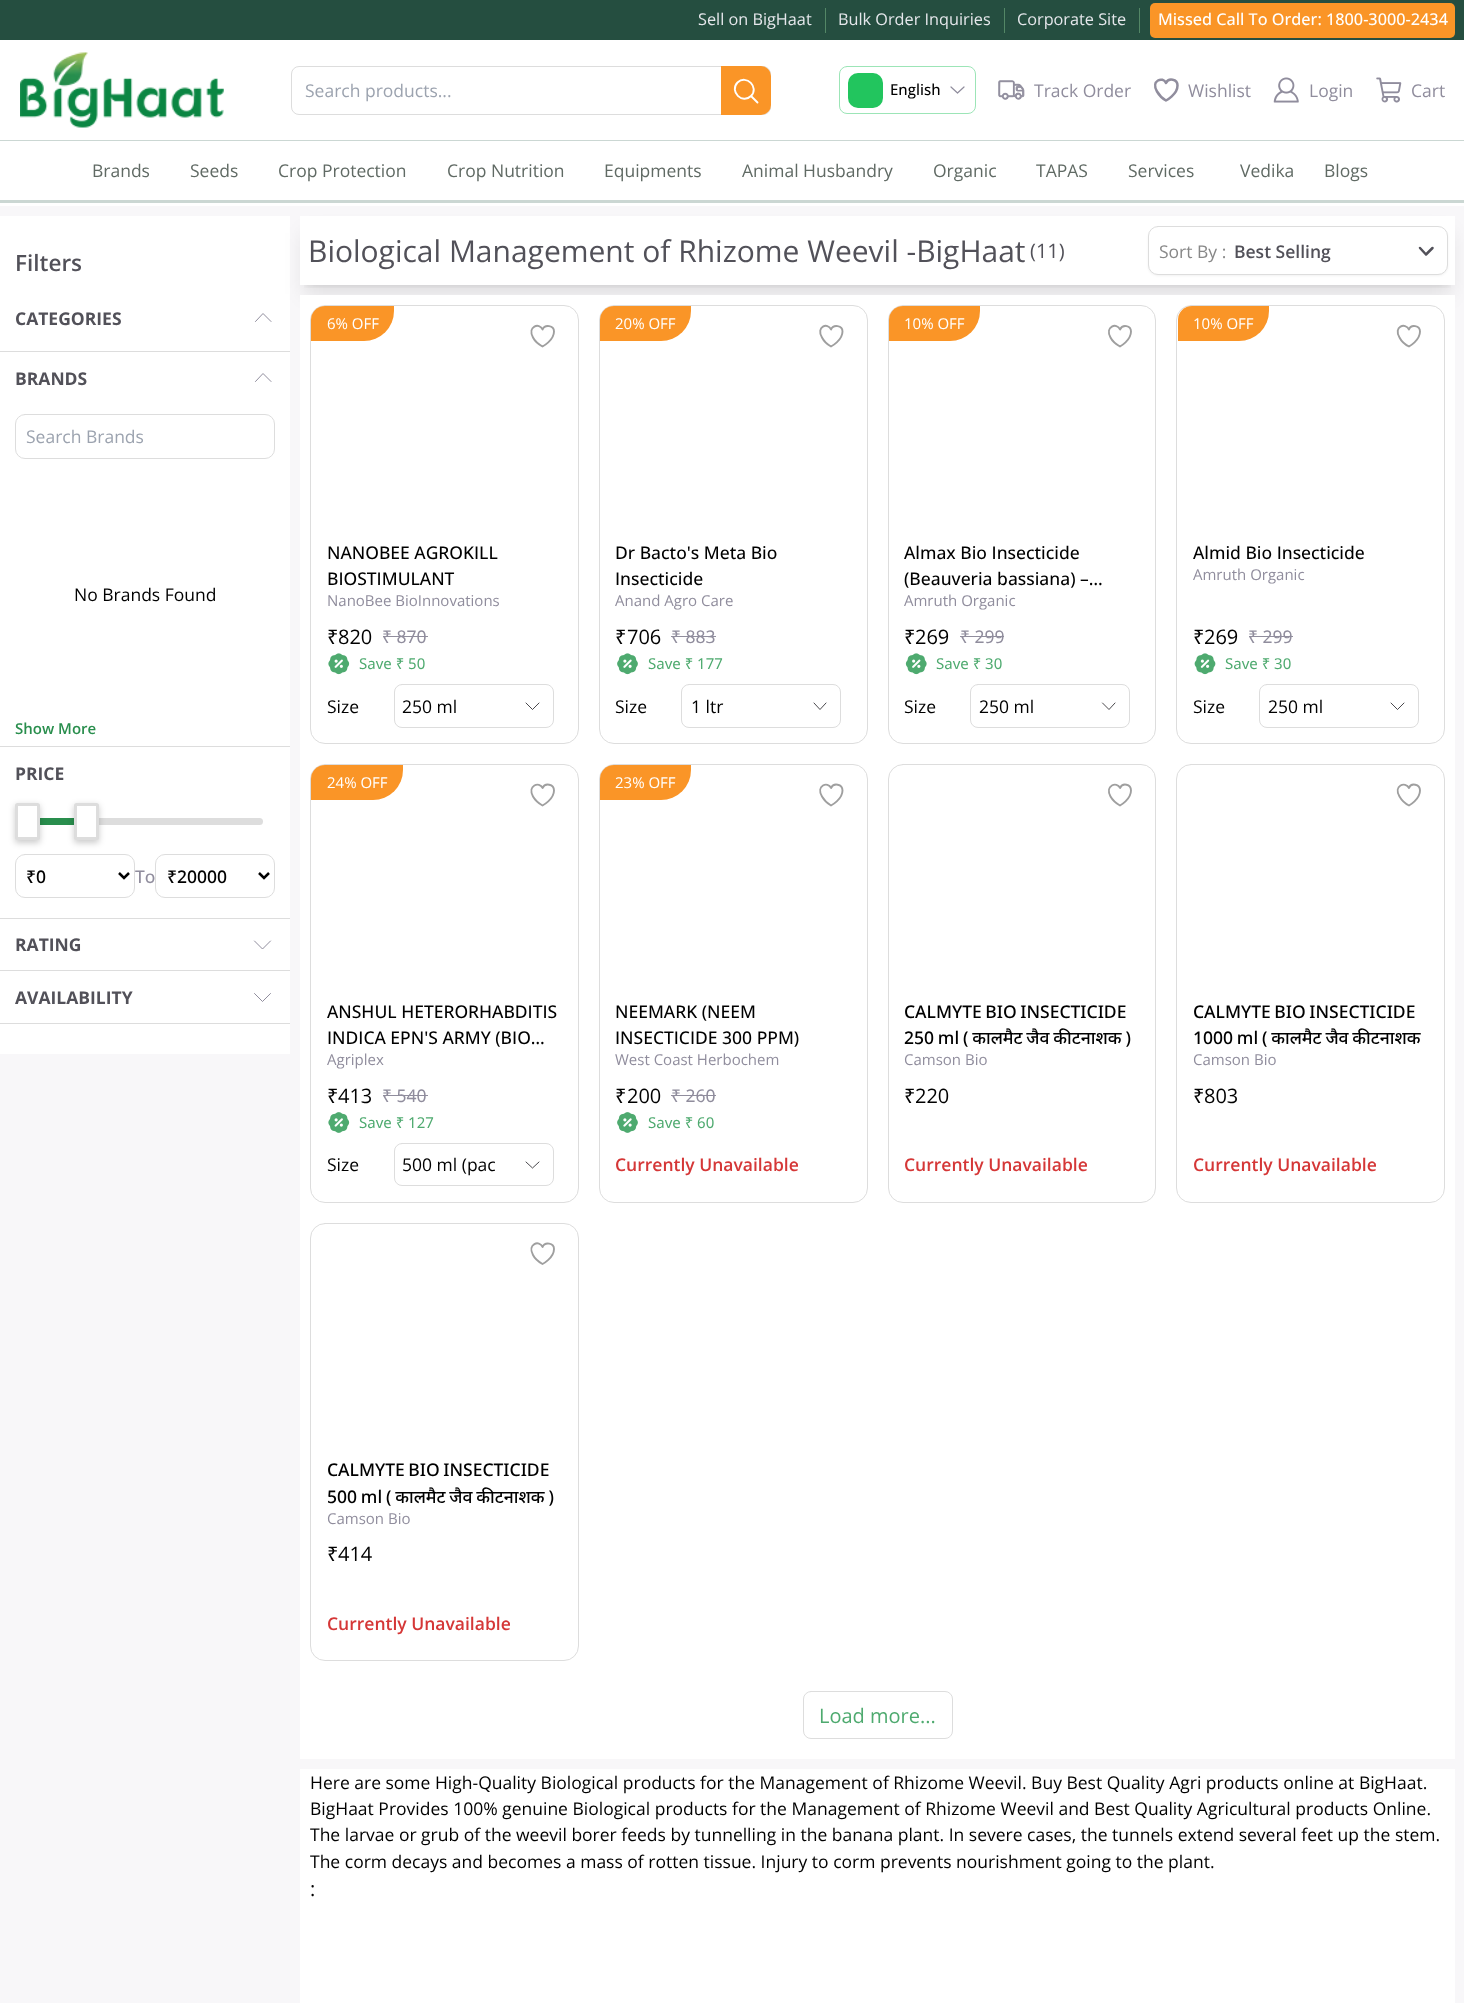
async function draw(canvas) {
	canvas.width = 1464;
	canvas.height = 2003;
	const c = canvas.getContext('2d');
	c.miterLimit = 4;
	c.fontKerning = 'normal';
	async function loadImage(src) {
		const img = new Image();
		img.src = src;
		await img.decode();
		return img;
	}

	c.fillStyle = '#fff';
	c.fillRect(0, 0, 1464, 2003);
	c.fillStyle = '#254e40';
	c.fillRect(0, 0, 1464, 40);
	c.fillStyle = '#538766';
	c.fillRect(825, 8, 1, 25);
	c.font = '16.25px Open Sans';
	c.fillStyle = '#e5e7eb';
	c.fillText('Sell on BigHaat', 698, 25);
	c.fillStyle = '#538766';
	c.fillRect(1004, 8, 1, 25);
	c.fillStyle = '#e5e7eb';
	c.fillText('Bulk Order Inquiries', 838, 25);
	c.fillStyle = '#538766';
	c.fillRect(1139, 8, 1, 25);
	c.fillStyle = '#e5e7eb';
	c.fillText('Corporate Site', 1017, 25);
	c.fillStyle = '#fa9527';
	c.beginPath();
	c.roundRect(1150, 3, 305, 35, 5);
	c.fill();
	c.font = '500 16.25px Open Sans';
	c.fillStyle = '#fff';
	c.fillText('Missed Call To Order: 1800-3000-2434', 1158, 25);
	c.drawImage(await loadImage('img1.png'), 20, 52, 204, 76);
	c.beginPath();
	c.roundRect(291.5, 66.5, 479, 48, 7.5);
	c.strokeStyle = '#ddd';
	c.stroke();
	c.font = '17.5px Open Sans';
	c.fillStyle = '#9ca3af';
	c.fillText('Search products...', 305, 97);
	c.fillStyle = '#fa9527';
	c.beginPath();
	c.roundRect(721, 66, 50, 49, [0, 10, 10, 0]);
	c.fill();
	c.beginPath();
	c.moveTo(757.5, 102.5);
	c.lineTo(751, 96);
	c.moveTo(751, 96);
	c.bezierCurveTo(759.5, 87.5, 746.5, 74, 737.5, 82.5);
	c.bezierCurveTo(729, 91.5, 742.5, 104.5, 751, 96);
	c.closePath();
	c.strokeStyle = '#fff';
	c.lineWidth = 1.9;
	c.lineCap = 'round';
	c.lineJoin = 'round';
	c.stroke();
	c.beginPath();
	c.roundRect(839.5, 66.5, 136, 47, 7.5);
	c.strokeStyle = '#9ce5b7';
	c.lineWidth = 1;
	c.lineJoin = 'miter';
	c.stroke();
	c.fillStyle = '#22c55e';
	c.beginPath();
	c.roundRect(850, 75, 31, 31, 8);
	c.fill();
	c.strokeStyle = '#22c55e';
	c.lineWidth = 4;
	c.stroke();
	c.font = '500 15px Open Sans';
	c.fillStyle = '#000';
	c.fillText('English', 890, 95);
	c.beginPath();
	c.moveTo(964, 87);
	c.lineTo(957.5, 93);
	c.lineTo(951, 87);
	c.strokeStyle = '#908d9d';
	c.lineWidth = 1.2;
	c.lineJoin = 'round';
	c.stroke();
	c.drawImage(await loadImage('img2.png'), 998, 80, 27, 20);
	c.font = '17.5px Open Sans';
	c.fillStyle = '#908d9d';
	c.fillText('Track Order', 1034, 97);
	c.beginPath();
	c.moveTo(1177.5, 85.5);
	c.bezierCurveTo(1177.5, 79, 1168.5, 77.5, 1166, 83);
	c.bezierCurveTo(1163, 76, 1150.5, 80.5, 1157, 91.5);
	c.bezierCurveTo(1159, 95, 1162.5, 98.5, 1166, 100.5);
	c.bezierCurveTo(1166, 100.5, 1177.5, 94.5, 1177.5, 85.5);
	c.closePath();
	c.lineWidth = 2.5;
	c.stroke();
	c.fillText('Wishlist', 1188, 97);
	c.drawImage(await loadImage('img3.png'), 1273, 77, 26, 26);
	c.fillText('Login', 1309, 97);
	c.drawImage(await loadImage('img4.png'), 1376, 77, 26, 26);
	c.fillText('Cart', 1411, 97);
	c.fillStyle = '#cbd7d3';
	c.fillRect(0, 140, 1464, 1);
	c.fillRect(0, 200, 1464, 3);
	c.fillStyle = '#606a64';
	for (const [text, x, y] of [
		['Brands', 92, 177],
		['Seeds', 190, 177],
		['Crop Protection', 278, 177],
		['Crop Nutrition', 447, 177],
		['Equipments', 604, 177],
		['Animal Husbandry', 742, 177],
		['Organic', 933, 177],
		['TAPAS', 1036, 177],
		['Services', 1128, 177],
		['Vedika', 1240, 177],
		['Blogs', 1324, 177],
	]) {
		c.fillText(text, x, y);
	}
	c.fillStyle = '#f8f7f9';
	c.fillRect(0, 206, 1464, 1797);
	c.fillStyle = '#fff';
	c.fillRect(0, 216, 290, 838);
	c.font = '600 22.5px Open Sans';
	c.fillStyle = '#525159';
	c.fillText('Filters', 15, 271);
	c.fillStyle = '#ddd';
	c.fillRect(0, 351, 290, 1);
	c.font = 'bold 17.5px Open Sans';
	c.fillStyle = '#525159';
	c.fillText('CATEGORIES', 15, 325);
	c.beginPath();
	c.moveTo(255.5, 321.5);
	c.lineTo(263, 313.5);
	c.lineTo(271, 321.5);
	c.lineWidth = 1;
	c.stroke();
	c.fillStyle = '#ddd';
	c.fillRect(0, 746, 290, 1);
	c.fillStyle = '#525159';
	c.fillText('BRANDS', 15, 385);
	c.beginPath();
	c.moveTo(255.5, 381.5);
	c.lineTo(263, 373.5);
	c.lineTo(271, 381.5);
	c.stroke();
	c.beginPath();
	c.roundRect(15.5, 414.5, 259, 44, 9.5);
	c.strokeStyle = '#ddd';
	c.lineJoin = 'miter';
	c.stroke();
	c.font = '17.5px Open Sans';
	c.fillStyle = '#9ca3af';
	c.fillText('Search Brands', 26, 443);
	c.fillStyle = '#000';
	c.fillText('No Brands Found', 74, 601);
	c.font = '600 15px Open Sans';
	c.fillStyle = '#298e4d';
	c.fillText('Show More', 15, 734);
	c.fillStyle = '#ddd';
	c.fillRect(0, 918, 290, 1);
	c.font = 'bold 17.5px Open Sans';
	c.fillStyle = '#525159';
	c.fillText('PRICE', 15, 780);
	c.fillStyle = '#ddd';
	c.beginPath();
	c.roundRect(28, 818, 235, 7, 3.5);
	c.fill();
	c.fillStyle = '#298e4d';
	c.fillRect(40, 818, 34, 7);
	c.fillStyle = '#00000033';
	c.filter = 'blur(3px)';
	c.beginPath();
	c.roundRect(15, 805, 25, 38, 2.5);
	c.fill();
	c.filter = 'none';
	c.fillStyle = '#fff';
	c.beginPath();
	c.roundRect(16.5, 804.5, 22, 34, 1);
	c.fill();
	c.lineWidth = 3;
	c.stroke();
	c.fillStyle = '#00000033';
	c.filter = 'blur(3px)';
	c.beginPath();
	c.roundRect(74, 805, 25, 38, 2.5);
	c.fill();
	c.filter = 'none';
	c.fillStyle = '#fff';
	c.beginPath();
	c.roundRect(75.5, 804.5, 22, 34, 1);
	c.fill();
	c.stroke();
	c.beginPath();
	c.roundRect(15.5, 854.5, 119, 43, 9.5);
	c.lineWidth = 1;
	c.stroke();
	c.beginPath();
	c.moveTo(119, 873);
	c.lineTo(124, 878);
	c.lineTo(129, 873);
	c.strokeStyle = '#000';
	c.lineWidth = 2.5;
	c.lineCap = 'butt';
	c.stroke();
	c.font = '500 17.5px Noto Sans';
	c.fillStyle = '#000';
	c.fillText('₹0', 26, 883);
	c.font = '500 17.5px Open Sans';
	c.fillStyle = '#908d9d';
	c.fillText('To', 135, 883);
	c.beginPath();
	c.roundRect(155.5, 854.5, 119, 43, 9.5);
	c.strokeStyle = '#ddd';
	c.lineWidth = 1;
	c.stroke();
	c.beginPath();
	c.moveTo(259, 873);
	c.lineTo(264, 878);
	c.lineTo(269, 873);
	c.strokeStyle = '#000';
	c.lineWidth = 2.5;
	c.stroke();
	c.font = '500 17.5px Noto Sans';
	c.fillStyle = '#000';
	c.fillText('₹20000', 167, 883);
	c.fillStyle = '#ddd';
	c.fillRect(0, 970, 290, 1);
	c.font = 'bold 17.5px Open Sans';
	c.fillStyle = '#525159';
	c.fillText('RATING', 15, 951);
	c.beginPath();
	c.moveTo(270.5, 941);
	c.lineTo(262.5, 949);
	c.lineTo(254.5, 941);
	c.moveTo(270.5, 993.5);
	c.lineTo(262.5, 1001.5);
	c.lineTo(254.5, 993.5);
	c.strokeStyle = '#908d9d';
	c.lineWidth = 1;
	c.lineCap = 'round';
	c.lineJoin = 'round';
	c.stroke();
	c.fillStyle = '#ddd';
	c.fillRect(0, 1023, 290, 1);
	c.fillStyle = '#525159';
	c.fillText('AVAILABILITY', 15, 1004);
	c.fillStyle = '#fff';
	c.fillRect(300, 216, 1155, 69);
	c.save();
	c.beginPath();
	c.rect(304, 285, 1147, 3);
	c.clip();
	c.fillStyle = '#0000001a';
	c.filter = 'blur(4px)';
	c.beginPath();
	c.rect(305, 226, 1145, 59);
	c.fill();
	c.filter = 'none';
	c.restore();
	c.save();
	c.beginPath();
	c.moveTo(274, 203);
	c.lineTo(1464, 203);
	c.lineTo(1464, 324);
	c.lineTo(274, 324);
	c.closePath();
	c.moveTo(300, 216);
	c.lineTo(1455, 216);
	c.lineTo(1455, 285);
	c.lineTo(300, 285);
	c.closePath();
	c.clip('evenodd');
	c.fillStyle = '#0000001a';
	c.filter = 'blur(9.5px)';
	c.beginPath();
	c.rect(304, 233, 1147, 61);
	c.fill();
	c.filter = 'none';
	c.restore();
	c.font = '30px Open Sans';
	c.fillStyle = '#525159';
	c.fillText('Biological Management of Rhizome Weevil -BigHaat', 308, 262);
	c.font = '20px Open Sans';
	c.fillText('(11)', 1030, 258);
	c.fillStyle = '#0000000d';
	c.filter = 'blur(1px)';
	c.beginPath();
	c.roundRect(1148, 228, 300, 48, 10);
	c.fill();
	c.filter = 'none';
	c.fillStyle = '#fff';
	c.beginPath();
	c.roundRect(1148.5, 226.5, 299, 48, 9.5);
	c.fill();
	c.strokeStyle = '#ddd';
	c.lineJoin = 'miter';
	c.stroke();
	c.font = '17.5px Open Sans';
	c.fillStyle = '#888';
	c.fillText('Sort By :', 1159, 258);
	c.font = '600 17.5px Open Sans';
	c.fillStyle = '#525159';
	c.fillText('Best Selling', 1234, 258);
	c.beginPath();
	c.moveTo(1432.5, 248);
	c.lineTo(1426, 254.5);
	c.lineTo(1420, 248);
	c.strokeStyle = '#525159';
	c.lineWidth = 2.5;
	c.lineJoin = 'round';
	c.stroke();
	c.fillStyle = '#fff';
	c.fillRect(300, 295, 1155, 1464);
	c.beginPath();
	c.roundRect(310.5, 305.5, 268, 438, 14.5);
	c.strokeStyle = '#ddd';
	c.lineWidth = 1;
	c.lineJoin = 'miter';
	c.stroke();
	c.fillStyle = '#fa9527';
	c.beginPath();
	c.roundRect(311, 306, 83, 35, [14, 0, 30, 0]);
	c.fill();
	c.font = '15px Open Sans';
	c.fillStyle = '#fff';
	c.fillText('6% OFF', 327, 329);
	c.font = '500 17.5px Open Sans';
	c.fillStyle = '#000';
	c.fillText('NANOBEE AGROKILL', 327, 559);
	c.fillText('BIOSTIMULANT', 327, 585);
	c.font = '15px Open Sans';
	c.fillStyle = '#908d9d';
	c.fillText('NanoBee BioInnovations', 327, 606);
	c.font = '20px Noto Sans';
	c.fillStyle = '#000';
	c.fillText('₹', 327, 644);
	c.font = '20px Open Sans';
	c.fillText('820', 338, 644);
	c.font = '17.5px Noto Sans';
	c.fillStyle = '#908d9d';
	c.fillText('₹ 870', 382, 643);
	c.fillRect(383, 636, 45, 1);
	c.drawImage(await loadImage('img5.png'), 328, 653, 22, 22);
	c.font = '15px Noto Sans';
	c.fillStyle = '#4eaa6f';
	c.fillText('Save ₹ 50', 359, 669);
	c.beginPath();
	c.moveTo(554, 331.5);
	c.bezierCurveTo(554, 325.5, 545, 324, 542.5, 329.5);
	c.bezierCurveTo(539.5, 322, 527, 326.5, 533, 337.5);
	c.bezierCurveTo(535, 341.5, 539, 344.5, 542.5, 346.5);
	c.bezierCurveTo(542.5, 346.5, 554, 340.5, 554, 331.5);
	c.closePath();
	c.strokeStyle = '#9f9f9f';
	c.lineWidth = 1.9;
	c.lineJoin = 'round';
	c.stroke();
	c.font = '17.5px Open Sans';
	c.fillStyle = '#000';
	c.fillText('Size', 327, 713);
	c.beginPath();
	c.roundRect(394.5, 684.5, 159, 43, 7.5);
	c.strokeStyle = '#ddd';
	c.lineWidth = 1;
	c.lineJoin = 'miter';
	c.stroke();
	c.fillText('250 ml', 402, 713);
	c.beginPath();
	c.moveTo(539, 703);
	c.lineTo(532.5, 709.5);
	c.lineTo(526, 703);
	c.strokeStyle = '#1c1b1f';
	c.lineWidth = 0.8;
	c.lineJoin = 'round';
	c.stroke();
	c.beginPath();
	c.roundRect(599.5, 305.5, 268, 438, 14.5);
	c.strokeStyle = '#ddd';
	c.lineWidth = 1;
	c.lineJoin = 'miter';
	c.stroke();
	c.fillStyle = '#fa9527';
	c.beginPath();
	c.roundRect(600, 306, 91, 35, [14, 0, 30, 0]);
	c.fill();
	c.font = '15px Open Sans';
	c.fillStyle = '#fff';
	c.fillText('20% OFF', 615, 329);
	c.font = '500 17.5px Open Sans';
	c.fillStyle = '#000';
	c.fillText('Dr Bacto\'s Meta Bio', 615, 559);
	c.fillText('Insecticide', 615, 585);
	c.font = '15px Open Sans';
	c.fillStyle = '#908d9d';
	c.fillText('Anand Agro Care', 615, 606);
	c.font = '20px Noto Sans';
	c.fillStyle = '#000';
	c.fillText('₹', 615, 644);
	c.font = '20px Open Sans';
	c.fillText('706', 627, 644);
	c.font = '17.5px Noto Sans';
	c.fillStyle = '#908d9d';
	c.fillText('₹ 883', 671, 643);
	c.fillRect(671, 636, 45, 1);
	c.drawImage(await loadImage('img6.png'), 617, 653, 21, 22);
	c.font = '15px Noto Sans';
	c.fillStyle = '#4eaa6f';
	c.fillText('Save ₹ 177', 648, 669);
	c.beginPath();
	c.moveTo(842.5, 331.5);
	c.bezierCurveTo(842.5, 325.5, 833.5, 324, 831, 329.5);
	c.bezierCurveTo(828, 322, 815.5, 326.5, 822, 337.5);
	c.bezierCurveTo(824, 341.5, 827.5, 344.5, 831, 346.5);
	c.bezierCurveTo(831, 346.5, 842.5, 340.5, 842.5, 331.5);
	c.closePath();
	c.strokeStyle = '#9f9f9f';
	c.lineWidth = 1.9;
	c.lineJoin = 'round';
	c.stroke();
	c.font = '17.5px Open Sans';
	c.fillStyle = '#000';
	c.fillText('Size', 615, 713);
	c.beginPath();
	c.roundRect(681.5, 684.5, 159, 43, 7.5);
	c.strokeStyle = '#ddd';
	c.lineWidth = 1;
	c.lineJoin = 'miter';
	c.stroke();
	c.fillText('1 ltr', 691, 713);
	c.beginPath();
	c.moveTo(826, 703);
	c.lineTo(820, 709.5);
	c.lineTo(814, 703);
	c.strokeStyle = '#1c1b1f';
	c.lineWidth = 0.8;
	c.lineJoin = 'round';
	c.stroke();
	c.beginPath();
	c.roundRect(888.5, 305.5, 267, 438, 14.5);
	c.strokeStyle = '#ddd';
	c.lineWidth = 1;
	c.lineJoin = 'miter';
	c.stroke();
	c.fillStyle = '#fa9527';
	c.beginPath();
	c.roundRect(889, 306, 91, 35, [14, 0, 30, 0]);
	c.fill();
	c.font = '15px Open Sans';
	c.fillStyle = '#fff';
	c.fillText('10% OFF', 904, 329);
	c.font = '500 17.5px Open Sans';
	c.fillStyle = '#000';
	c.fillText('Almax Bio Insecticide', 904, 559);
	c.fillText('(Beauveria bassiana) –…', 904, 585);
	c.font = '15px Open Sans';
	c.fillStyle = '#908d9d';
	c.fillText('Amruth Organic', 904, 606);
	c.font = '20px Noto Sans';
	c.fillStyle = '#000';
	c.fillText('₹', 904, 644);
	c.font = '20px Open Sans';
	c.fillText('269', 915, 644);
	c.font = '17.5px Noto Sans';
	c.fillStyle = '#908d9d';
	c.fillText('₹ 299', 960, 643);
	c.fillRect(960, 636, 44, 1);
	c.drawImage(await loadImage('img7.png'), 905, 653, 22, 22);
	c.font = '15px Noto Sans';
	c.fillStyle = '#4eaa6f';
	c.fillText('Save ₹ 30', 936, 669);
	c.beginPath();
	c.moveTo(1131, 331.5);
	c.bezierCurveTo(1131, 325.5, 1122.5, 324, 1120, 329.5);
	c.bezierCurveTo(1117, 322, 1104.5, 326.5, 1110.5, 337.5);
	c.bezierCurveTo(1112.5, 341.5, 1116.5, 344.5, 1120, 346.5);
	c.bezierCurveTo(1120, 346.5, 1131, 340.5, 1131, 331.5);
	c.closePath();
	c.strokeStyle = '#9f9f9f';
	c.lineWidth = 1.9;
	c.lineJoin = 'round';
	c.stroke();
	c.font = '17.5px Open Sans';
	c.fillStyle = '#000';
	c.fillText('Size', 904, 713);
	c.beginPath();
	c.roundRect(970.5, 684.5, 159, 43, 7.5);
	c.strokeStyle = '#ddd';
	c.lineWidth = 1;
	c.lineJoin = 'miter';
	c.stroke();
	c.fillText('250 ml', 979, 713);
	c.beginPath();
	c.moveTo(1115, 703);
	c.lineTo(1109, 709.5);
	c.lineTo(1102.5, 703);
	c.strokeStyle = '#1c1b1f';
	c.lineWidth = 0.8;
	c.lineJoin = 'round';
	c.stroke();
	c.beginPath();
	c.roundRect(1176.5, 305.5, 268, 438, 14.5);
	c.strokeStyle = '#ddd';
	c.lineWidth = 1;
	c.lineJoin = 'miter';
	c.stroke();
	c.fillStyle = '#fa9527';
	c.beginPath();
	c.roundRect(1178, 306, 91, 35, [14, 0, 30, 0]);
	c.fill();
	c.font = '15px Open Sans';
	c.fillStyle = '#fff';
	c.fillText('10% OFF', 1193, 329);
	c.font = '500 17.5px Open Sans';
	c.fillStyle = '#000';
	c.fillText('Almid Bio Insecticide', 1193, 559);
	c.font = '15px Open Sans';
	c.fillStyle = '#908d9d';
	c.fillText('Amruth Organic', 1193, 580);
	c.font = '20px Noto Sans';
	c.fillStyle = '#000';
	c.fillText('₹', 1193, 644);
	c.font = '20px Open Sans';
	c.fillText('269', 1204, 644);
	c.font = '17.5px Noto Sans';
	c.fillStyle = '#908d9d';
	c.fillText('₹ 299', 1248, 643);
	c.fillRect(1249, 636, 44, 1);
	c.drawImage(await loadImage('img8.png'), 1194, 653, 22, 22);
	c.font = '15px Noto Sans';
	c.fillStyle = '#4eaa6f';
	c.fillText('Save ₹ 30', 1225, 669);
	c.beginPath();
	c.moveTo(1420, 331.5);
	c.bezierCurveTo(1420, 325.5, 1411, 324, 1409, 329.5);
	c.bezierCurveTo(1405.5, 322, 1393, 326.5, 1399.5, 337.5);
	c.bezierCurveTo(1401.5, 341.5, 1405, 344.5, 1409, 346.5);
	c.bezierCurveTo(1409, 346.5, 1420, 340.5, 1420, 331.5);
	c.closePath();
	c.strokeStyle = '#9f9f9f';
	c.lineWidth = 1.9;
	c.lineJoin = 'round';
	c.stroke();
	c.font = '17.5px Open Sans';
	c.fillStyle = '#000';
	c.fillText('Size', 1193, 713);
	c.beginPath();
	c.roundRect(1259.5, 684.5, 159, 43, 7.5);
	c.strokeStyle = '#ddd';
	c.lineWidth = 1;
	c.lineJoin = 'miter';
	c.stroke();
	c.fillText('250 ml', 1268, 713);
	c.beginPath();
	c.moveTo(1404, 703);
	c.lineTo(1397.5, 709.5);
	c.lineTo(1391, 703);
	c.strokeStyle = '#1c1b1f';
	c.lineWidth = 0.8;
	c.lineJoin = 'round';
	c.stroke();
	c.beginPath();
	c.roundRect(310.5, 764.5, 268, 438, 14.5);
	c.strokeStyle = '#ddd';
	c.lineWidth = 1;
	c.lineJoin = 'miter';
	c.stroke();
	c.fillStyle = '#fa9527';
	c.beginPath();
	c.roundRect(311, 765, 92, 35, [14, 0, 30, 0]);
	c.fill();
	c.font = '15px Open Sans';
	c.fillStyle = '#fff';
	c.fillText('24% OFF', 327, 788);
	c.font = '500 17.5px Open Sans';
	c.fillStyle = '#000';
	c.fillText('ANSHUL HETERORHABDITIS', 327, 1018);
	c.fillText('INDICA EPN\'S ARMY (BIO…', 327, 1044);
	c.font = '15px Open Sans';
	c.fillStyle = '#908d9d';
	c.fillText('Agriplex', 327, 1065);
	c.font = '20px Noto Sans';
	c.fillStyle = '#000';
	c.fillText('₹', 327, 1103);
	c.font = '20px Open Sans';
	c.fillText('413', 338, 1103);
	c.font = '17.5px Noto Sans';
	c.fillStyle = '#908d9d';
	c.fillText('₹ 540', 382, 1102);
	c.fillRect(383, 1095, 45, 1);
	c.drawImage(await loadImage('img9.png'), 328, 1112, 22, 21);
	c.font = '15px Noto Sans';
	c.fillStyle = '#4eaa6f';
	c.fillText('Save ₹ 127', 359, 1128);
	c.beginPath();
	c.moveTo(554, 790.5);
	c.bezierCurveTo(554, 784, 545, 782.5, 542.5, 788);
	c.bezierCurveTo(539.5, 781, 527, 785.5, 533, 796.5);
	c.bezierCurveTo(535, 800, 539, 803.5, 542.5, 805.5);
	c.bezierCurveTo(542.5, 805.5, 554, 799.5, 554, 790.5);
	c.closePath();
	c.strokeStyle = '#9f9f9f';
	c.lineWidth = 1.9;
	c.lineJoin = 'round';
	c.stroke();
	c.font = '17.5px Open Sans';
	c.fillStyle = '#000';
	c.fillText('Size', 327, 1171);
	c.beginPath();
	c.roundRect(394.5, 1143.5, 159, 42, 7.5);
	c.strokeStyle = '#ddd';
	c.lineWidth = 1;
	c.lineJoin = 'miter';
	c.stroke();
	c.fillText('500 ml (pac', 402, 1171);
	c.beginPath();
	c.moveTo(539, 1162);
	c.lineTo(532.5, 1168);
	c.lineTo(526, 1162);
	c.strokeStyle = '#1c1b1f';
	c.lineWidth = 0.8;
	c.lineJoin = 'round';
	c.stroke();
	c.beginPath();
	c.roundRect(599.5, 764.5, 268, 438, 14.5);
	c.strokeStyle = '#ddd';
	c.lineWidth = 1;
	c.lineJoin = 'miter';
	c.stroke();
	c.fillStyle = '#fa9527';
	c.beginPath();
	c.roundRect(600, 765, 91, 35, [14, 0, 30, 0]);
	c.fill();
	c.font = '15px Open Sans';
	c.fillStyle = '#fff';
	c.fillText('23% OFF', 615, 788);
	c.font = '500 17.5px Open Sans';
	c.fillStyle = '#000';
	c.fillText('NEEMARK (NEEM', 615, 1018);
	c.fillText('INSECTICIDE 300 PPM)', 615, 1044);
	c.font = '15px Open Sans';
	c.fillStyle = '#908d9d';
	c.fillText('West Coast Herbochem', 615, 1065);
	c.font = '20px Noto Sans';
	c.fillStyle = '#000';
	c.fillText('₹', 615, 1103);
	c.font = '20px Open Sans';
	c.fillText('200', 627, 1103);
	c.font = '17.5px Noto Sans';
	c.fillStyle = '#908d9d';
	c.fillText('₹ 260', 671, 1102);
	c.fillRect(671, 1095, 45, 1);
	c.drawImage(await loadImage('img10.png'), 617, 1112, 21, 21);
	c.font = '15px Noto Sans';
	c.fillStyle = '#4eaa6f';
	c.fillText('Save ₹ 60', 648, 1128);
	c.beginPath();
	c.moveTo(842.5, 790.5);
	c.bezierCurveTo(842.5, 784, 833.5, 782.5, 831, 788);
	c.bezierCurveTo(828, 781, 815.5, 785.5, 822, 796.5);
	c.bezierCurveTo(824, 800, 827.5, 803.5, 831, 805.5);
	c.bezierCurveTo(831, 805.5, 842.5, 799.5, 842.5, 790.5);
	c.closePath();
	c.strokeStyle = '#9f9f9f';
	c.lineWidth = 1.9;
	c.lineJoin = 'round';
	c.stroke();
	c.font = '600 17.5px Open Sans';
	c.fillStyle = '#d53737';
	c.fillText('Currently Unavailable', 615, 1171);
	c.beginPath();
	c.roundRect(888.5, 764.5, 267, 438, 14.5);
	c.strokeStyle = '#ddd';
	c.lineWidth = 1;
	c.lineJoin = 'miter';
	c.stroke();
	c.beginPath();
	c.moveTo(1131, 790.5);
	c.bezierCurveTo(1131, 784, 1122.5, 782.5, 1120, 788);
	c.bezierCurveTo(1117, 781, 1104.5, 785.5, 1110.5, 796.5);
	c.bezierCurveTo(1112.5, 800, 1116.5, 803.5, 1120, 805.5);
	c.bezierCurveTo(1120, 805.5, 1131, 799.5, 1131, 790.5);
	c.closePath();
	c.strokeStyle = '#9f9f9f';
	c.lineWidth = 1.9;
	c.lineJoin = 'round';
	c.stroke();
	c.wordSpacing = '-1px';
	c.font = '500 17.5px Noto Sans';
	c.fillStyle = '#000';
	c.fillText('CALMYTE BIO INSECTICIDE', 904, 1018);
	c.wordSpacing = '-0.75px';
	c.fillText('250 ml ( कालमैट जैव कीटनाशक )', 904, 1044);
	c.wordSpacing = '0px';
	c.font = '15px Open Sans';
	c.fillStyle = '#908d9d';
	c.fillText('Camson Bio', 904, 1065);
	c.font = '20px Noto Sans';
	c.fillStyle = '#000';
	c.fillText('₹', 904, 1103);
	c.font = '20px Open Sans';
	c.fillText('220', 915, 1103);
	c.font = '600 17.5px Open Sans';
	c.fillStyle = '#d53737';
	c.fillText('Currently Unavailable', 904, 1171);
	c.beginPath();
	c.roundRect(1176.5, 764.5, 268, 438, 14.5);
	c.strokeStyle = '#ddd';
	c.lineWidth = 1;
	c.lineJoin = 'miter';
	c.stroke();
	c.beginPath();
	c.moveTo(1420, 790.5);
	c.bezierCurveTo(1420, 784, 1411, 782.5, 1409, 788);
	c.bezierCurveTo(1405.5, 781, 1393, 785.5, 1399.5, 796.5);
	c.bezierCurveTo(1401.5, 800, 1405, 803.5, 1409, 805.5);
	c.bezierCurveTo(1409, 805.5, 1420, 799.5, 1420, 790.5);
	c.closePath();
	c.strokeStyle = '#9f9f9f';
	c.lineWidth = 1.9;
	c.lineJoin = 'round';
	c.stroke();
	c.wordSpacing = '-1px';
	c.font = '500 17.5px Noto Sans';
	c.fillStyle = '#000';
	c.fillText('CALMYTE BIO INSECTICIDE', 1193, 1018);
	c.wordSpacing = '-0.75px';
	c.fillText('1000 ml ( कालमैट जैव कीटनाशक', 1193, 1044);
	c.wordSpacing = '0px';
	c.font = '15px Open Sans';
	c.fillStyle = '#908d9d';
	c.fillText('Camson Bio', 1193, 1065);
	c.font = '20px Noto Sans';
	c.fillStyle = '#000';
	c.fillText('₹', 1193, 1103);
	c.font = '20px Open Sans';
	c.fillText('803', 1204, 1103);
	c.font = '600 17.5px Open Sans';
	c.fillStyle = '#d53737';
	c.fillText('Currently Unavailable', 1193, 1171);
	c.beginPath();
	c.roundRect(310.5, 1223.5, 268, 437, 14.5);
	c.strokeStyle = '#ddd';
	c.lineWidth = 1;
	c.lineJoin = 'miter';
	c.stroke();
	c.beginPath();
	c.moveTo(554, 1249);
	c.bezierCurveTo(554, 1243, 545, 1241.5, 542.5, 1247);
	c.bezierCurveTo(539.5, 1239.5, 527, 1244, 533, 1255);
	c.bezierCurveTo(535, 1259, 539, 1262, 542.5, 1264);
	c.bezierCurveTo(542.5, 1264, 554, 1258, 554, 1249);
	c.closePath();
	c.strokeStyle = '#9f9f9f';
	c.lineWidth = 1.9;
	c.lineJoin = 'round';
	c.stroke();
	c.wordSpacing = '-1px';
	c.font = '500 17.5px Noto Sans';
	c.fillStyle = '#000';
	c.fillText('CALMYTE BIO INSECTICIDE', 327, 1476);
	c.wordSpacing = '-0.75px';
	c.fillText('500 ml ( कालमैट जैव कीटनाशक )', 327, 1503);
	c.wordSpacing = '0px';
	c.font = '15px Open Sans';
	c.fillStyle = '#908d9d';
	c.fillText('Camson Bio', 327, 1524);
	c.font = '20px Noto Sans';
	c.fillStyle = '#000';
	c.fillText('₹', 327, 1561);
	c.font = '20px Open Sans';
	c.fillText('414', 338, 1561);
	c.font = '600 17.5px Open Sans';
	c.fillStyle = '#d53737';
	c.fillText('Currently Unavailable', 327, 1630);
	c.beginPath();
	c.roundRect(803.5, 1691.5, 149, 47, 7.5);
	c.strokeStyle = '#ddd';
	c.lineWidth = 1;
	c.lineJoin = 'miter';
	c.stroke();
	c.font = '20px Open Sans';
	c.fillStyle = '#4eaa6f';
	c.fillText('Load more...', 819, 1723);
	c.fillStyle = '#fff';
	c.fillRect(300, 1769, 1155, 234);
	c.font = '17.5px Open Sans';
	c.fillStyle = '#000';
	for (const [text, x, y] of [
		['Here are some High-Quality Biological products for the Management of Rhizome Weevil. Buy Best Quality Agri products online at BigHaat.', 310, 1789],
		['BigHaat Provides 100% genuine Biological products for the Management of Rhizome Weevil and Best Quality Agricultural products Online.', 310, 1815],
		['The larvae or grub of the weevil borer feeds by tunnelling in the banana plant. In severe cases, the tunnels extend several feet up the stem.', 310, 1841],
		['The corm decays and becomes a mass of rotten tissue. Injury to corm prevents nourishment going to the plant.', 310, 1868],
	]) {
		c.fillText(text, x, y);
	}
	c.font = '20px Open Sans';
	c.fillText(':', 310, 1896);
}

draw(document.querySelector('canvas'));
